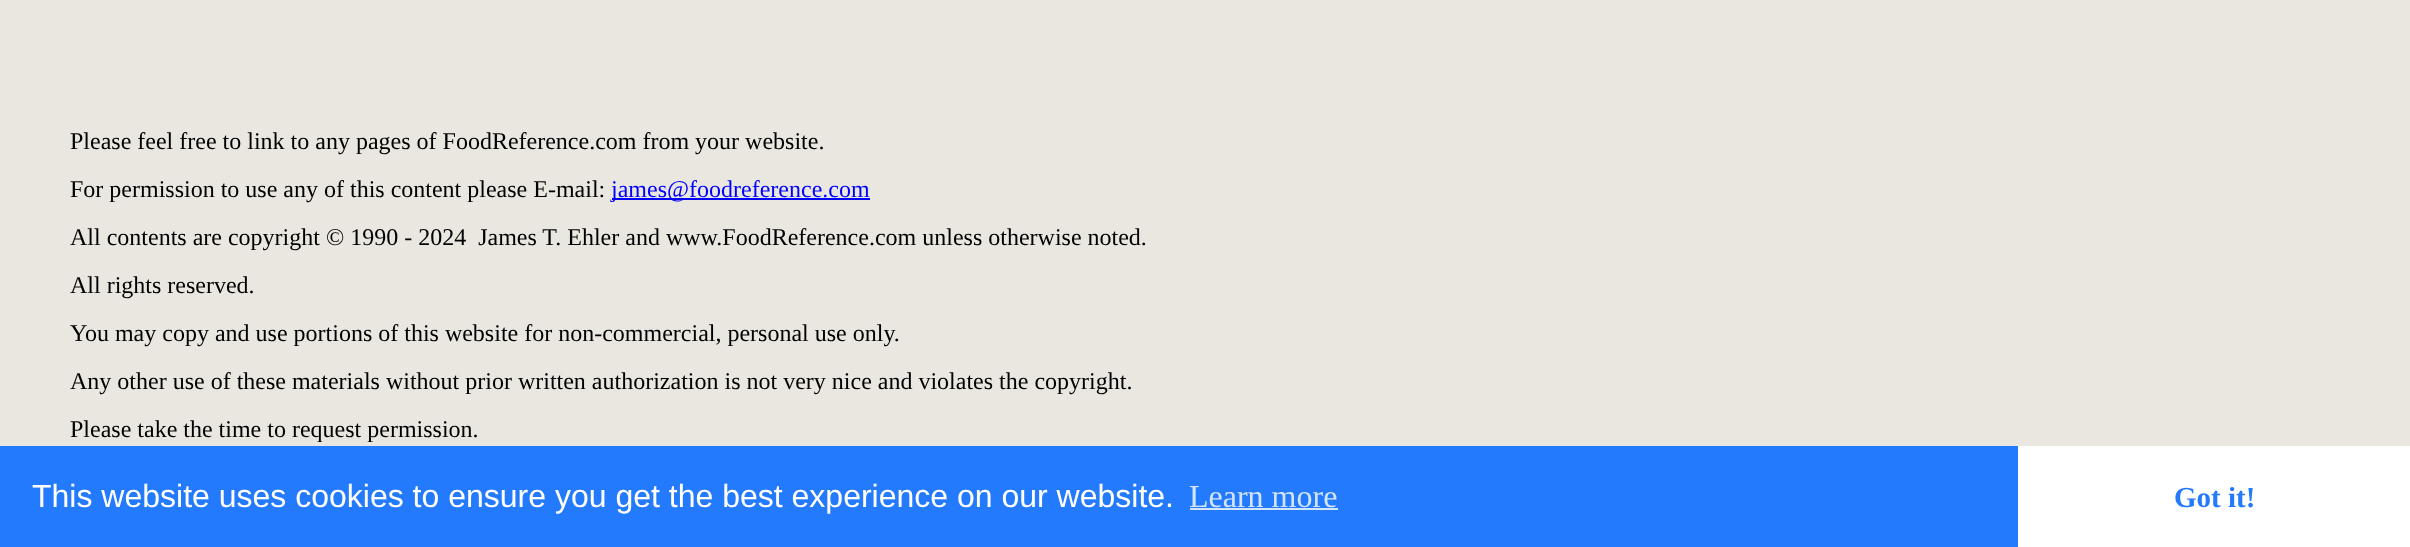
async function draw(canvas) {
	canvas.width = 2410;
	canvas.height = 547;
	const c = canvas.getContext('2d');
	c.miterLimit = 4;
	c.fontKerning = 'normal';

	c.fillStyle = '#e9e7df';
	c.fillRect(0, 0, 2410, 547);
	c.font = '24px Liberation Serif';
	c.fillStyle = '#000';
	c.fillText('Please feel free to link to any pages of FoodReference.com from your website.', 70, 149);
	c.fillText('For permission to use any of this content please E-mail:', 70, 197);
	c.fillStyle = '#00f';
	c.fillRect(612, 198, 258, 2);
	c.fillText('james@foodreference.com', 611, 197);
	c.fillStyle = '#000';
	for (const [text, x, y] of [
		['All contents are copyright © 1990 - 2024  James T. Ehler and www.FoodReference.com unless otherwise noted.', 70, 245],
		['All rights reserved.', 70, 293],
		['You may copy and use portions of this website for non-commercial, personal use only.', 70, 341],
		['Any other use of these materials without prior written authorization is not very nice and violates the copyright.', 70, 389],
		['Please take the time to request permission.', 70, 437],
	]) {
		c.fillText(text, x, y);
	}
	c.fillStyle = '#237afc';
	c.fillRect(0, 446, 2018, 101);
	c.font = '32px Liberation Sans';
	c.fillStyle = '#fff';
	c.fillText('This website uses cookies to ensure you get the best experience on our website.', 32, 507);
	c.font = '32px Liberation Serif';
	c.fillStyle = '#d3e4fe';
	c.fillText('Learn more', 1189, 507);
	c.fillRect(1190, 508, 148, 2);
	c.fillStyle = '#fff';
	c.fillRect(2018, 446, 392, 101);
	c.font = 'bold 29px Liberation Serif';
	c.fillStyle = '#237afc';
	c.fillText('Got it!', 2174, 507);
}

draw(document.querySelector('canvas'));
